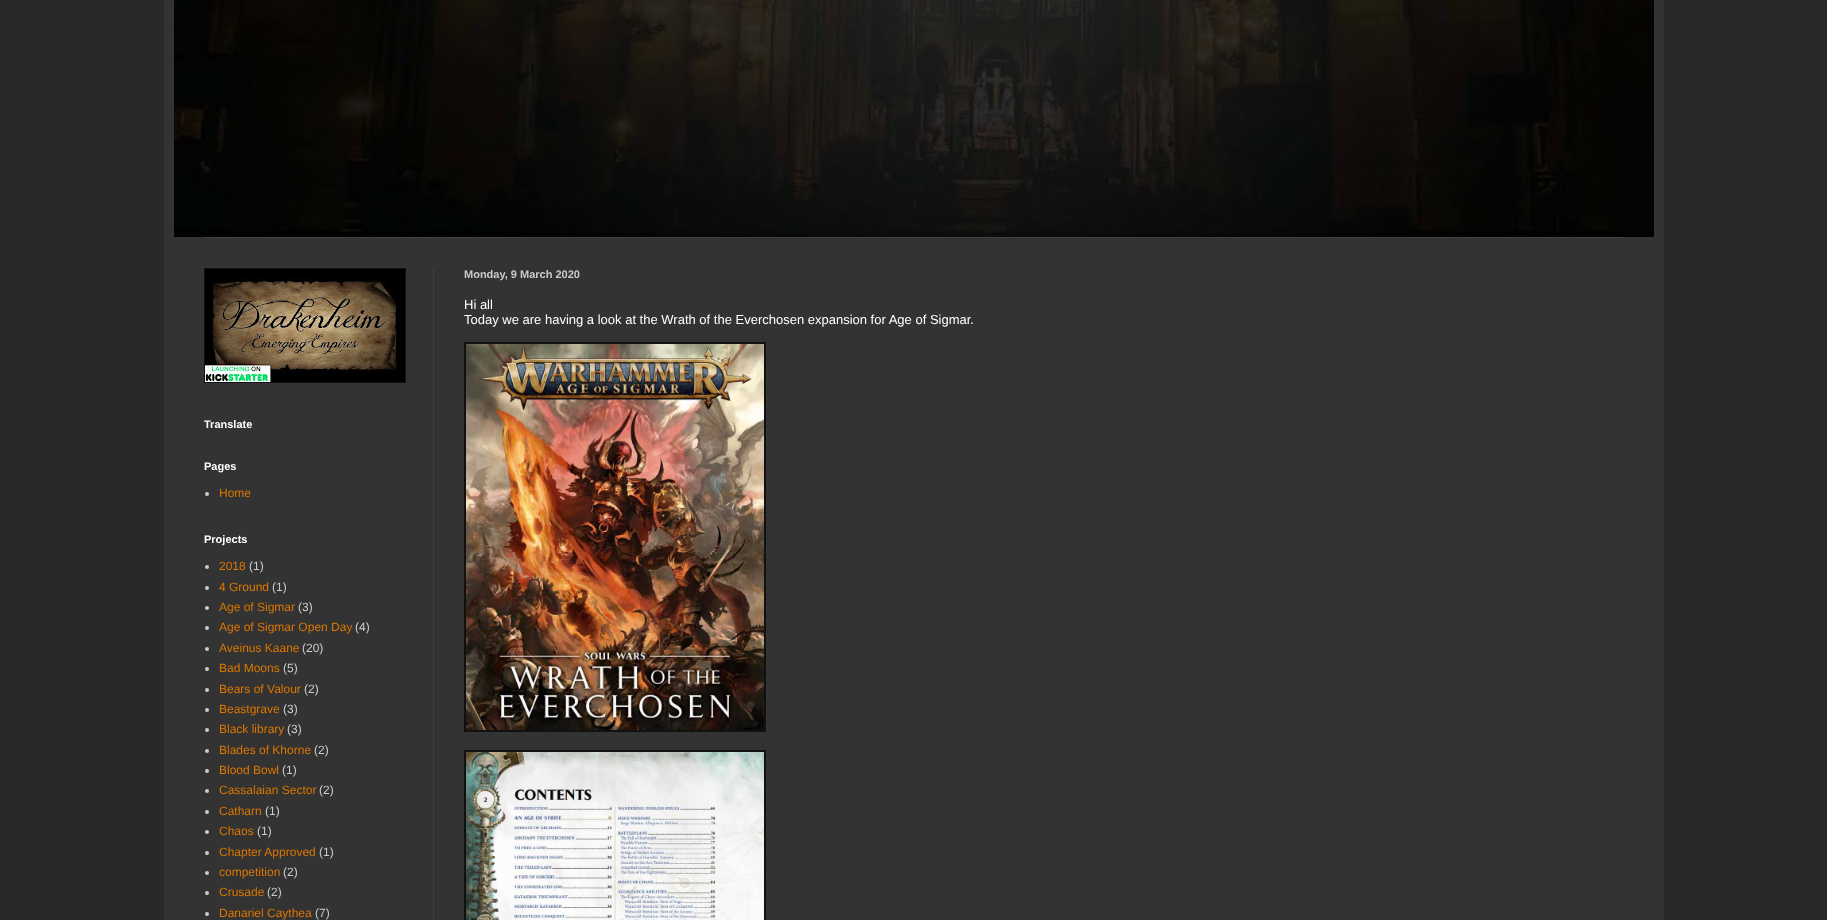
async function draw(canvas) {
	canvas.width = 1827;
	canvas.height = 920;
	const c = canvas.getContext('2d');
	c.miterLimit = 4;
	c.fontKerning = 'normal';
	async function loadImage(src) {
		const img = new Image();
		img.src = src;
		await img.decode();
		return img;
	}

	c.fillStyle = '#292929';
	c.fillRect(0, 0, 1827, 920);
	c.fillStyle = '#333';
	c.fillRect(164, 0, 1500, 920);
	c.drawImage(await loadImage('img1.png'), 174, 0, 1480, 237);
	c.fillStyle = '#404040';
	c.fillRect(204, 237, 1420, 1);
	c.fillRect(433, 268, 1, 652);
	c.font = 'bold 11px Liberation Sans';
	c.fillStyle = '#ccc';
	c.fillText('Monday, 9 March 2020', 464, 278);
	c.font = '13px Liberation Sans';
	c.fillStyle = '#fff';
	c.fillText('Hi all', 464, 309);
	c.fillText('Today we are having a look at the Wrath of the Everchosen expansion for Age of Sigmar.', 464, 324);
	c.fillStyle = '#111';
	c.fillRect(464, 342, 302, 390);
	c.drawImage(await loadImage('img2.png'), 466, 344, 298, 386);
	c.fillRect(464, 750, 302, 170);
	c.drawImage(await loadImage('img3.png'), 466, 752, 298, 168);
	c.fillRect(204, 268, 202, 115);
	c.drawImage(await loadImage('img4.png'), 205, 269, 200, 113);
	c.font = 'bold 11px Liberation Sans';
	c.fillStyle = '#fff';
	c.fillText('Translate', 204, 428);
	c.fillText('Pages', 204, 470);
	c.fillStyle = '#ccc';
	c.beginPath();
	c.arc(207, 494, 2, 0, 2 * Math.PI);
	c.fill();
	c.font = '12px Liberation Sans';
	c.fillStyle = '#d70';
	c.fillText('Home', 219, 497);
	c.font = 'bold 11px Liberation Sans';
	c.fillStyle = '#fff';
	c.fillText('Projects', 204, 543);
	c.fillStyle = '#ccc';
	c.beginPath();
	c.arc(207, 567, 2, 0, 2 * Math.PI);
	c.fill();
	c.font = '12px Liberation Sans';
	c.fillStyle = '#d70';
	c.fillText('2018', 219, 570);
	c.fillStyle = '#ccc';
	c.fillText('(1)', 249, 570);
	c.beginPath();
	c.arc(207, 588, 2, 0, 2 * Math.PI);
	c.fill();
	c.fillStyle = '#d70';
	c.fillText('4 Ground', 219, 591);
	c.fillStyle = '#ccc';
	c.fillText('(1)', 272, 591);
	c.beginPath();
	c.arc(207, 608, 2, 0, 2 * Math.PI);
	c.fill();
	c.fillStyle = '#d70';
	c.fillText('Age of Sigmar', 219, 611);
	c.fillStyle = '#ccc';
	c.fillText('(3)', 298, 611);
	c.beginPath();
	c.arc(207, 628, 2, 0, 2 * Math.PI);
	c.fill();
	c.fillStyle = '#d70';
	c.fillText('Age of Sigmar Open Day', 219, 631);
	c.fillStyle = '#ccc';
	c.fillText('(4)', 355, 631);
	c.beginPath();
	c.arc(207, 649, 2, 0, 2 * Math.PI);
	c.fill();
	c.fillStyle = '#d70';
	c.fillText('Aveinus Kaane', 219, 652);
	c.fillStyle = '#ccc';
	c.fillText('(20)', 302, 652);
	c.beginPath();
	c.arc(207, 669, 2, 0, 2 * Math.PI);
	c.fill();
	c.fillStyle = '#d70';
	c.fillText('Bad Moons', 219, 672);
	c.fillStyle = '#ccc';
	c.fillText('(5)', 283, 672);
	c.beginPath();
	c.arc(207, 690, 2, 0, 2 * Math.PI);
	c.fill();
	c.fillStyle = '#d70';
	c.fillText('Bears of Valour', 219, 693);
	c.fillStyle = '#ccc';
	c.fillText('(2)', 304, 693);
	c.beginPath();
	c.arc(207, 710, 2, 0, 2 * Math.PI);
	c.fill();
	c.fillStyle = '#d70';
	c.fillText('Beastgrave', 219, 713);
	c.fillStyle = '#ccc';
	c.fillText('(3)', 283, 713);
	c.beginPath();
	c.arc(207, 730, 2, 0, 2 * Math.PI);
	c.fill();
	c.fillStyle = '#d70';
	c.fillText('Black library', 219, 733);
	c.fillStyle = '#ccc';
	c.fillText('(3)', 287, 733);
	c.beginPath();
	c.arc(207, 751, 2, 0, 2 * Math.PI);
	c.fill();
	c.fillStyle = '#d70';
	c.fillText('Blades of Khorne', 219, 754);
	c.fillStyle = '#ccc';
	c.fillText('(2)', 314, 754);
	c.beginPath();
	c.arc(207, 771, 2, 0, 2 * Math.PI);
	c.fill();
	c.fillStyle = '#d70';
	c.fillText('Blood Bowl', 219, 774);
	c.fillStyle = '#ccc';
	c.fillText('(1)', 282, 774);
	c.beginPath();
	c.arc(207, 791, 2, 0, 2 * Math.PI);
	c.fill();
	c.fillStyle = '#d70';
	c.fillText('Cassalaian Sector', 219, 794);
	c.fillStyle = '#ccc';
	c.fillText('(2)', 319, 794);
	c.beginPath();
	c.arc(207, 812, 2, 0, 2 * Math.PI);
	c.fill();
	c.fillStyle = '#d70';
	c.fillText('Catharn', 219, 815);
	c.fillStyle = '#ccc';
	c.fillText('(1)', 265, 815);
	c.beginPath();
	c.arc(207, 832, 2, 0, 2 * Math.PI);
	c.fill();
	c.fillStyle = '#d70';
	c.fillText('Chaos', 219, 835);
	c.fillStyle = '#ccc';
	c.fillText('(1)', 257, 835);
	c.beginPath();
	c.arc(207, 853, 2, 0, 2 * Math.PI);
	c.fill();
	c.fillStyle = '#d70';
	c.fillText('Chapter Approved', 219, 856);
	c.fillStyle = '#ccc';
	c.fillText('(1)', 319, 856);
	c.beginPath();
	c.arc(207, 873, 2, 0, 2 * Math.PI);
	c.fill();
	c.fillStyle = '#d70';
	c.fillText('competition', 219, 876);
	c.fillStyle = '#ccc';
	c.fillText('(2)', 283, 876);
	c.beginPath();
	c.arc(207, 893, 2, 0, 2 * Math.PI);
	c.fill();
	c.fillStyle = '#d70';
	c.fillText('Crusade', 219, 896);
	c.fillStyle = '#ccc';
	c.fillText('(2)', 267, 896);
	c.beginPath();
	c.arc(207, 914, 2, 0, 2 * Math.PI);
	c.fill();
	c.fillStyle = '#d70';
	c.fillText('Danariel Caythea', 219, 917);
	c.fillStyle = '#ccc';
	c.fillText('(7)', 315, 917);
}

draw(document.querySelector('canvas'));
